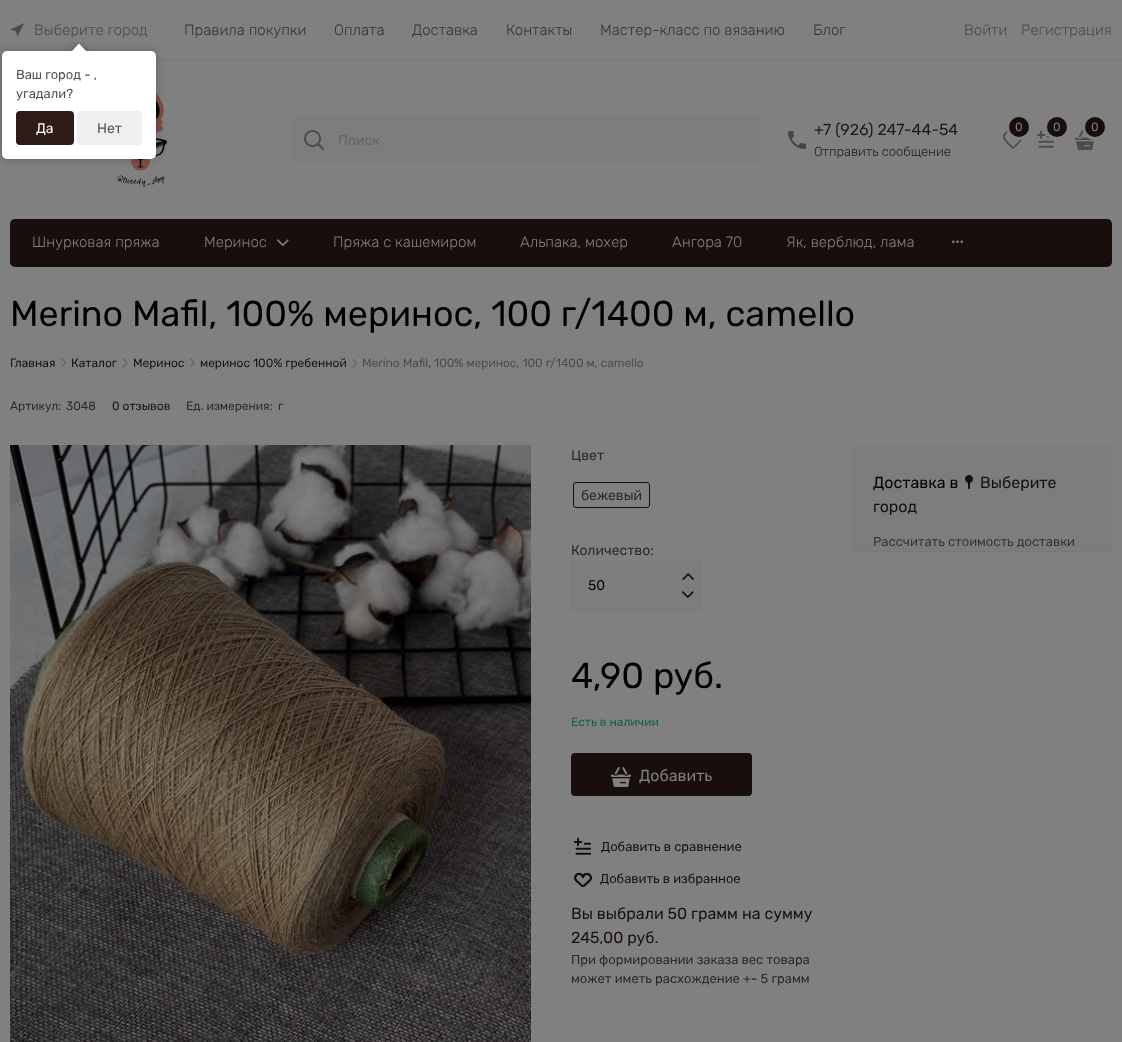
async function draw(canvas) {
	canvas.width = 1122;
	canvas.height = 1042;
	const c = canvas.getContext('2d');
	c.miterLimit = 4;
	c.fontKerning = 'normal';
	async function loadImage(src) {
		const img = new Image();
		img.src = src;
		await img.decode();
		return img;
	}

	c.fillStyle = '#808080';
	c.fillRect(0, 0, 1122, 1042);
	c.fillStyle = '#78787a';
	c.fillRect(0, 60, 1122, 1);
	c.drawImage(await loadImage('img1.png'), 10, 23, 14, 14);
	c.font = '300 15px Rubik';
	c.fillStyle = '#4b4a4a';
	c.fillText('Выберите город', 34, 35);
	c.fillStyle = '#333';
	for (const [text, x, y] of [
		['Правила покупки', 184, 35],
		['Оплата', 334, 35],
		['Доставка', 412, 35],
		['Контакты', 506, 35],
		['Мастер-класс по вязанию', 600, 35],
		['Блог', 813, 35],
	]) {
		c.fillText(text, x, y);
	}
	c.fillStyle = '#4b4a4a';
	c.fillText('Войти', 964, 35);
	c.fillText('Регистрация', 1021, 35);
	c.drawImage(await loadImage('img2.png'), 115, 93, 52, 94);
	c.fillStyle = '#7d7d7d';
	c.beginPath();
	c.roundRect(291, 116, 469, 47, 4);
	c.fill();
	c.drawImage(await loadImage('img3.png'), 304, 130, 20, 20);
	c.font = '14px Rubik';
	c.fillStyle = '#646466';
	c.fillText('Поиск', 338, 145);
	c.drawImage(await loadImage('img4.png'), 788, 131, 18, 18);
	c.font = '16px Rubik';
	c.fillStyle = '#1a1a1a';
	c.fillText('+7 (926) 247-44-54', 814, 135);
	c.font = '300 13px Rubik';
	c.fillText('Отправить сообщение', 814, 156);
	c.drawImage(await loadImage('img5.png'), 1003, 131, 20, 18);
	c.fillStyle = '#180e0b';
	c.beginPath();
	c.arc(1019, 127, 11.5, 0, 2 * Math.PI);
	c.fill();
	c.strokeStyle = '#808080';
	c.lineWidth = 3;
	c.stroke();
	c.font = '12px Rubik';
	c.fillStyle = '#808080';
	c.fillText('0', 1015, 131);
	c.drawImage(await loadImage('img6.png'), 1037, 130, 17, 18);
	c.fillStyle = '#180e0b';
	c.beginPath();
	c.arc(1057, 127, 11.5, 0, 2 * Math.PI);
	c.fill();
	c.stroke();
	c.fillStyle = '#808080';
	c.fillText('0', 1053, 131);
	c.drawImage(await loadImage('img7.png'), 1075, 130, 20, 20);
	c.fillStyle = '#180e0b';
	c.beginPath();
	c.arc(1095, 127, 11.5, 0, 2 * Math.PI);
	c.fill();
	c.stroke();
	c.fillStyle = '#808080';
	c.fillText('0', 1091, 131);
	c.fillStyle = '#180e0b';
	c.beginPath();
	c.roundRect(10, 219, 1102, 48, 5);
	c.fill();
	c.font = '300 15px Rubik';
	c.fillStyle = '#808080';
	c.fillText('Шнурковая пряжа', 32, 247);
	c.fillText('Меринос', 204, 247);
	c.drawImage(await loadImage('img8.png'), 277, 239, 12, 7);
	for (const [text, x, y] of [
		['Пряжа с кашемиром', 333, 247],
		['Альпака, мохер', 520, 247],
		['Ангора 70', 672, 247],
		['Як, верблюд, лама', 786, 247],
	]) {
		c.fillText(text, x, y);
	}
	c.drawImage(await loadImage('img9.png'), 952, 240, 11, 4);
	c.font = '36px Rubik';
	c.fillStyle = '#000';
	c.fillText('Merino Mafil, 100% меринос, 100 г/1400 м, camello', 10, 326);
	c.font = '12px Rubik';
	c.fillStyle = '#180e0b';
	c.fillText('Главная', 10, 367);
	c.drawImage(await loadImage('img10.png'), 61, 358, 5, 9);
	c.fillText('Каталог', 71, 367);
	c.drawImage(await loadImage('img11.png'), 122, 358, 6, 10);
	c.fillText('Меринос', 133, 367);
	c.drawImage(await loadImage('img12.png'), 190, 358, 5, 10);
	c.fillText('меринос 100% гребенной', 200, 367);
	c.drawImage(await loadImage('img13.png'), 352, 359, 5, 9);
	c.fillStyle = '#4b4a4a';
	c.fillText('Merino Mafil, 100% меринос, 100 г/1400 м, camello', 362, 367);
	c.fillStyle = '#26282c';
	c.fillText('Артикул:', 10, 410);
	c.fillText('3048', 66, 410);
	c.fillStyle = '#180e0b';
	c.fillText('0 отзывов', 112, 410);
	c.fillStyle = '#26282c';
	c.fillText('Ед. измерения:', 186, 410);
	c.fillText('г', 278, 410);
	c.drawImage(await loadImage('img14.png'), 10, 445, 521, 597);
	c.font = '14px Rubik';
	c.fillText('Цвет', 571, 460);
	c.beginPath();
	c.roundRect(573.5, 482.5, 76, 25, 2.5);
	c.strokeStyle = '#180e0b';
	c.lineWidth = 1;
	c.stroke();
	c.fillText('бежевый', 581, 500);
	c.fillText('Количество:', 571, 555);
	c.fillStyle = '#7d7d7d';
	c.beginPath();
	c.roundRect(571.5, 561.5, 129, 49, 3.5);
	c.fill();
	c.strokeStyle = '#78787a';
	c.stroke();
	c.fillStyle = '#000';
	c.fillText('50', 588, 590);
	c.drawImage(await loadImage('img15.png'), 682, 573, 12, 7);
	c.drawImage(await loadImage('img16.png'), 682, 591, 12, 7);
	c.font = '36px Rubik';
	c.fillText('4,90 руб.', 571, 688);
	c.font = '12px Rubik';
	c.fillStyle = '#0f613e';
	c.fillText('Есть в наличии', 571, 726);
	c.fillStyle = '#180e0b';
	c.beginPath();
	c.roundRect(571, 753, 181, 43, 4);
	c.fill();
	c.drawImage(await loadImage('img17.png'), 611, 767, 20, 20);
	c.font = '16px Rubik';
	c.fillStyle = '#808080';
	c.fillText('Добавить', 639, 781);
	c.drawImage(await loadImage('img18.png'), 574, 837, 18, 18);
	c.font = '13px Rubik';
	c.fillStyle = '#180e0b';
	c.fillText('Добавить в сравнение', 601, 851);
	c.drawImage(await loadImage('img19.png'), 574, 872, 18, 16);
	c.fillText('Добавить в избранное', 600, 883);
	c.font = '16px Rubik';
	c.fillText('Вы выбрали 50 грамм на сумму', 571, 919);
	c.fillText('245,00 руб.', 571, 943);
	c.font = '13px Rubik';
	c.fillStyle = '#26282c';
	c.fillText('При формировании заказа вес товара', 571, 964);
	c.fillText('может иметь расхождение +- 5 грамм', 571, 983);
	c.fillStyle = '#7d7d7d';
	c.beginPath();
	c.roundRect(852, 445, 260, 107, 4);
	c.fill();
	c.fillStyle = '#78787a';
	c.fillRect(852, 551, 260, 1);
	c.fillStyle = '#7d7d7d';
	c.fillRect(852, 445, 260, 2);
	c.font = '16px Rubik';
	c.fillStyle = '#000';
	c.fillText('Доставка в', 873, 488);
	c.drawImage(await loadImage('img20.png'), 965, 475, 8, 14);
	c.fillStyle = '#180e0b';
	c.fillText('Выберите', 980, 488);
	c.fillText('город', 873, 512);
	c.font = '13px Rubik';
	c.fillStyle = '#333';
	c.fillText('Рассчитать стоимость доставки', 873, 546);
	c.fillStyle = '#00000040';
	c.filter = 'blur(4.5px)';
	c.beginPath();
	c.roundRect(2, 51, 154, 108, 5);
	c.fill();
	c.filter = 'none';
	c.fillStyle = '#fff';
	c.beginPath();
	c.roundRect(2, 51, 154, 108, 5);
	c.fill();
	c.save();
	c.beginPath();
	c.rect(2, 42, 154, 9);
	c.clip();
	c.fillStyle = '#00000040';
	c.filter = 'blur(4.5px)';
	c.beginPath();
	c.rect(74, 46, 10, 10);
	c.fill();
	c.filter = 'none';
	c.restore();
	c.save();
	c.beginPath();
	c.rect(2, 42, 154, 9);
	c.clip();
	c.beginPath();
	c.moveTo(79, 43.5);
	c.lineTo(86, 51);
	c.lineTo(79, 58);
	c.lineTo(72, 51);
	c.closePath();
	c.fill();
	c.restore();
	c.fillStyle = '#4b4f58';
	c.fillText('Ваш город - ,', 16, 79);
	c.fillText('угадали?', 16, 98);
	c.fillStyle = '#2f1c16';
	c.beginPath();
	c.roundRect(16, 111, 58, 34, 4);
	c.fill();
	c.font = '14px Rubik';
	c.fillStyle = '#fff';
	c.fillText('Да', 36, 133);
	c.fillStyle = '#efefef';
	c.beginPath();
	c.roundRect(77, 111, 65, 34, 4);
	c.fill();
	c.fillStyle = '#4b4f58';
	c.fillText('Нет', 97, 133);
}

draw(document.querySelector('canvas'));
